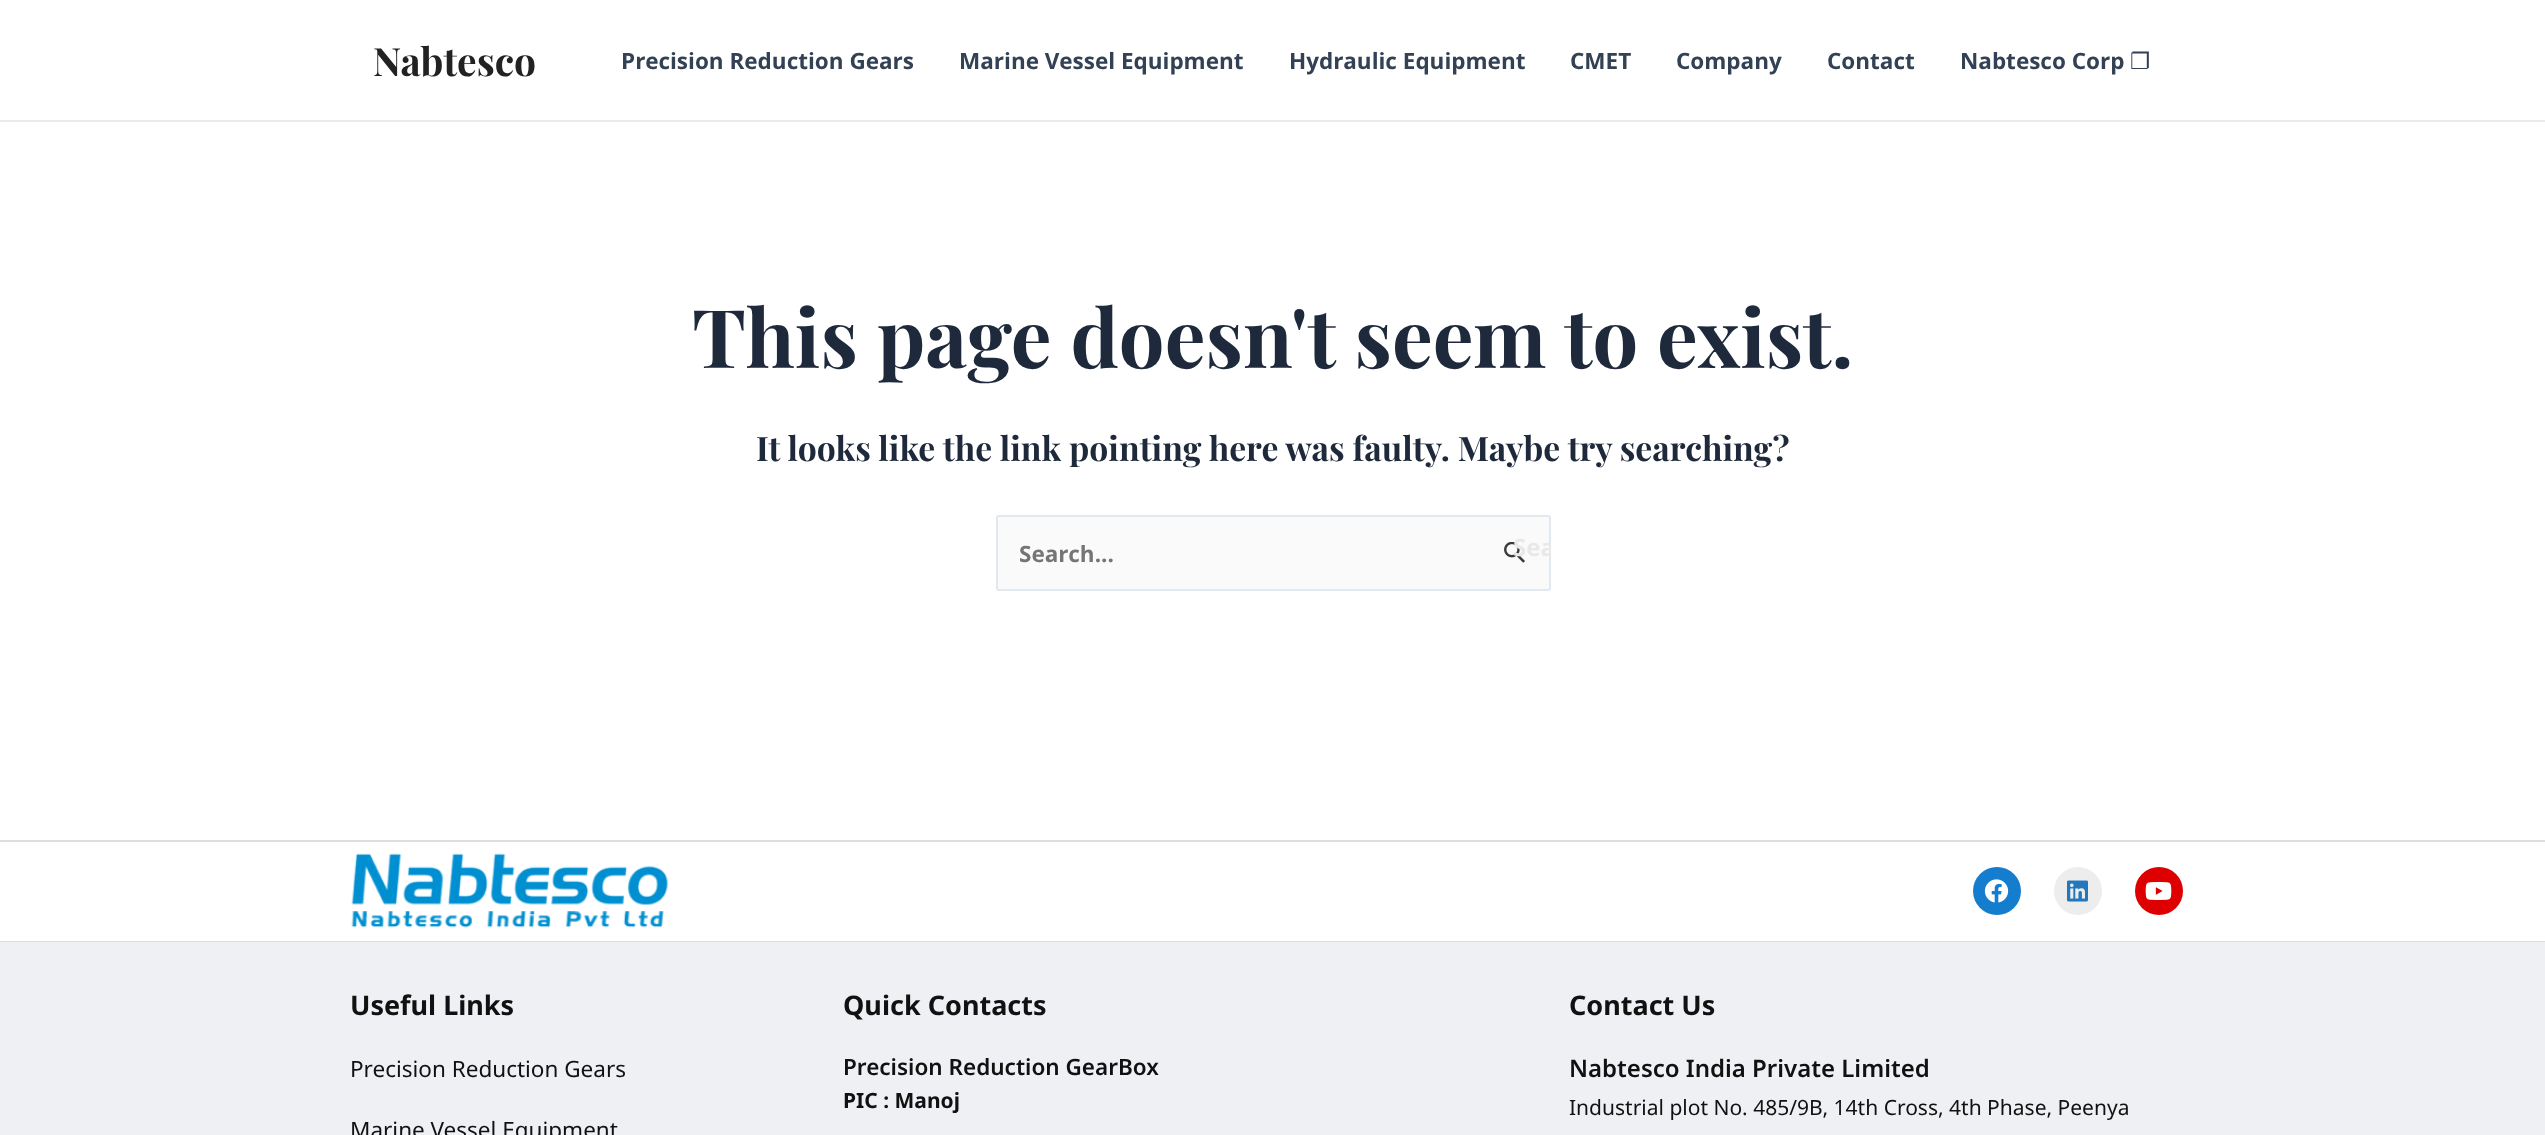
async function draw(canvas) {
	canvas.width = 2545;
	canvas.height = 1135;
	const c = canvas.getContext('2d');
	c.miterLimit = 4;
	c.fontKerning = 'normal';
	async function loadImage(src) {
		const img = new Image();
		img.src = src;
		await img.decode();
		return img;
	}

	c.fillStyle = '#fff';
	c.fillRect(0, 0, 2545, 1135);
	c.fillStyle = '#eaeaea';
	c.fillRect(0, 120, 2545, 2);
	c.font = 'bold 39px Playfair Display';
	c.fillStyle = '#222';
	c.fillText('Nabtesco', 373, 76);
	c.font = 'bold 22.5px Noto Sans';
	c.fillStyle = '#334155';
	for (const [text, x, y] of [
		['Precision Reduction Gears', 621, 69],
		['Marine Vessel Equipment', 959, 69],
		['Hydraulic Equipment', 1289, 69],
		['CMET', 1570, 69],
		['Company', 1676, 69],
		['Contact', 1827, 69],
		['Nabtesco Corp', 1960, 69],
	]) {
		c.fillText(text, x, y);
	}
	c.font = '22.5px DejaVu Sans';
	c.fillText('❐', 2130, 69);
	c.font = 'bold 81px Playfair Display';
	c.fillStyle = '#1e293b';
	c.fillText('This page doesn\'t seem to exist.', 692, 368);
	c.font = 'bold 33.75px Playfair Display';
	c.fillText('It looks like the link pointing here was faulty. Maybe try searching?', 756, 461);
	c.fillStyle = '#fafafa';
	c.beginPath();
	c.roundRect(997, 516, 553, 74, 2);
	c.fill();
	c.strokeStyle = '#e2e8f0';
	c.lineWidth = 2;
	c.stroke();
	c.font = 'bold 22.5px Noto Sans';
	c.fillStyle = '#757575';
	c.fillText('Search...', 1019, 562);
	c.drawImage(await loadImage('img1.png'), 1504, 542, 21, 21);
	c.save();
	c.beginPath();
	c.roundRect(1484, 515, 67, 63, 3);
	c.clip();
	c.font = 'bold 24px Noto Sans';
	c.fillStyle = '#e8e8e8';
	c.fillText('Sea', 1513, 556);
	c.restore();
	c.fillStyle = '#ddd';
	c.fillRect(0, 840, 2545, 2);
	c.fillRect(0, 941, 2545, 1);
	c.drawImage(await loadImage('img2.png'), 351, 853, 318, 75);
	c.fillStyle = '#147dcd';
	c.beginPath();
	c.arc(1997, 891, 24, 0, 2 * Math.PI);
	c.fill();
	c.drawImage(await loadImage('img3.png'), 1984, 879, 25, 24);
	c.fillStyle = '#ededed';
	c.beginPath();
	c.arc(2078, 891, 24, 0, 2 * Math.PI);
	c.fill();
	c.drawImage(await loadImage('img4.png'), 2067, 880, 21, 22);
	c.fillStyle = '#de0000';
	c.beginPath();
	c.arc(2159, 891, 24, 0, 2 * Math.PI);
	c.fill();
	c.drawImage(await loadImage('img5.png'), 2145, 882, 27, 18);
	c.fillStyle = '#eff0f3';
	c.fillRect(0, 942, 2545, 193);
	c.font = 'bold 27px "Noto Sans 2"';
	c.fillStyle = '#111';
	c.fillText('Useful Links', 350, 1015);
	c.font = '22.5px Noto Sans';
	c.fillText('Precision Reduction Gears', 350, 1077);
	c.fillText('Marine Vessel Equipment', 350, 1138);
	c.font = 'bold 27px "Noto Sans 2"';
	c.fillText('Quick Contacts', 843, 1015);
	c.font = '600 22.5px Noto Sans';
	c.fillText('Precision Reduction GearBox', 843, 1075);
	c.font = 'bold 21px "Noto Sans 2"';
	c.fillText('PIC : Manoj', 843, 1108);
	c.font = 'bold 27px "Noto Sans 2"';
	c.fillText('Contact Us', 1569, 1015);
	c.font = '600 24px Noto Sans';
	c.fillText('Nabtesco India Private Limited', 1569, 1077);
	c.font = '21px Noto Sans';
	c.fillText('Industrial plot No. 485/9B, 14th Cross, 4th Phase, Peenya', 1569, 1115);
}

draw(document.querySelector('canvas'));
